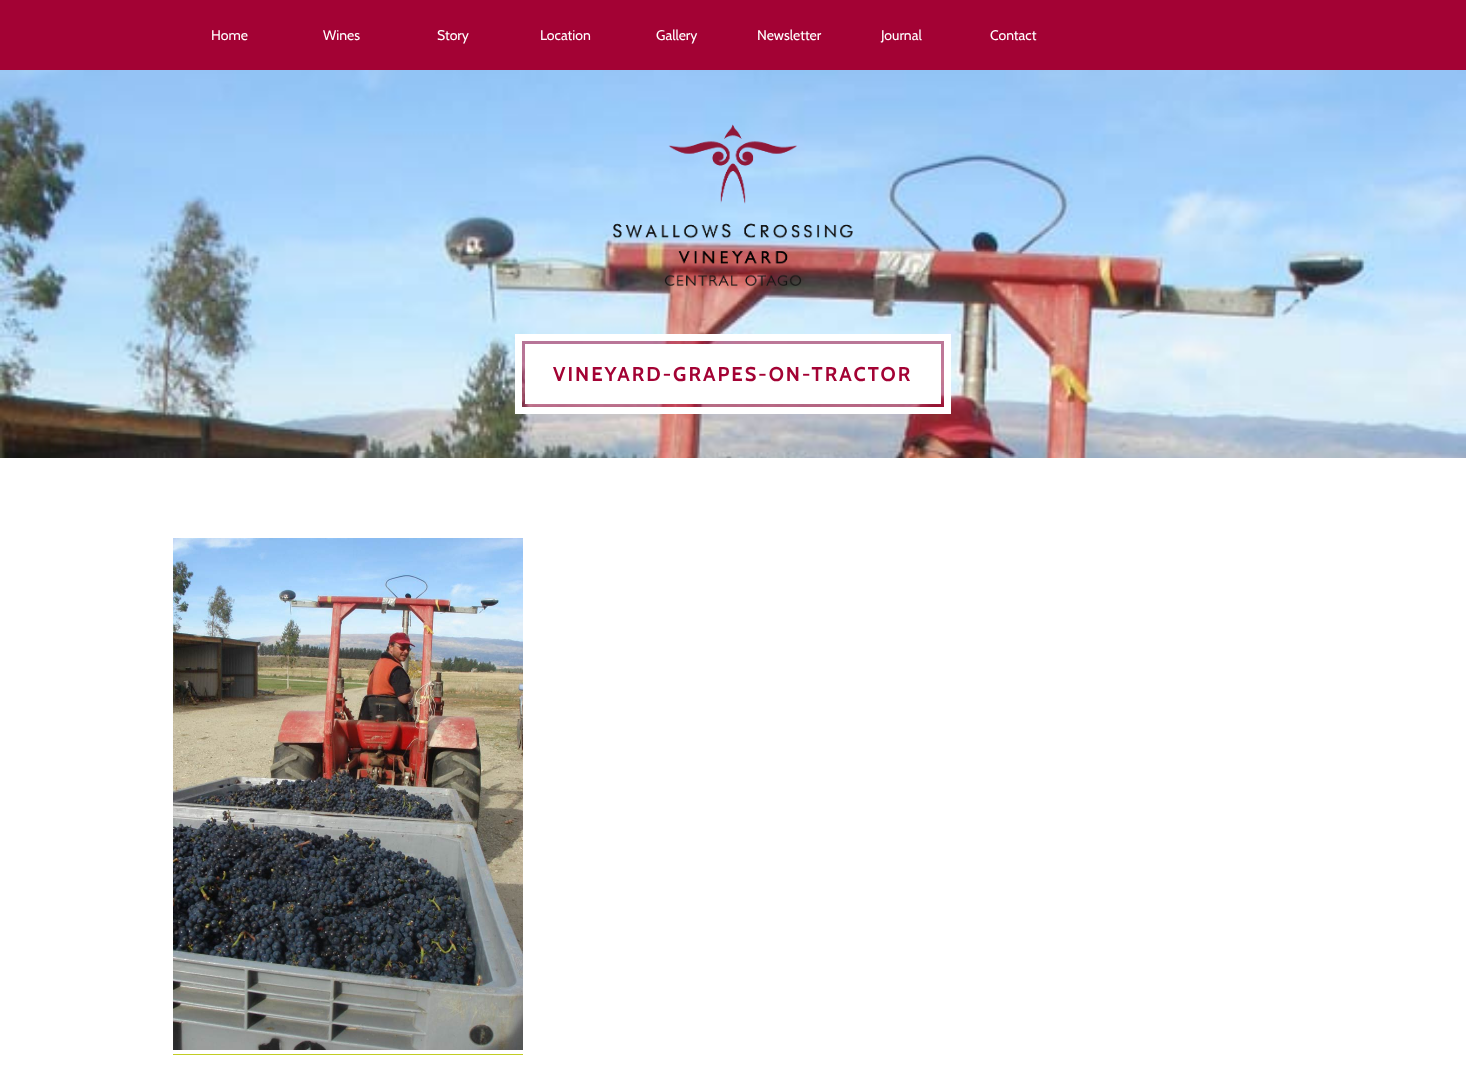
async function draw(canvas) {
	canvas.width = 1466;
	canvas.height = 1067;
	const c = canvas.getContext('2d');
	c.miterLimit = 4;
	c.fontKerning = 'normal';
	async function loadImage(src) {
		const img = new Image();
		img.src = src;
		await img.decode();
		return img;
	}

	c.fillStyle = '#fff';
	c.fillRect(0, 0, 1466, 1067);
	c.drawImage(await loadImage('img1.png'), 0, 70, 1466, 388);
	c.fillStyle = '#a30234';
	c.fillRect(0, 0, 1466, 70);
	c.font = '14px Cabin';
	c.fillStyle = '#fff';
	for (const [text, x, y] of [
		['Home', 211, 40],
		['Wines', 323, 40],
		['Story', 437, 40],
		['Location', 540, 40],
		['Gallery', 656, 40],
		['Newsletter', 757, 40],
		['Journal', 881, 40],
		['Contact', 990, 40],
	]) {
		c.fillText(text, x, y);
	}
	c.drawImage(await loadImage('img2.png'), 613, 124, 240, 162);
	c.strokeStyle = '#a3023480';
	c.lineWidth = 5;
	c.strokeRect(522.5, 341.5, 421, 65);
	c.fillRect(525, 344, 416, 60);
	c.strokeStyle = '#fff';
	c.lineWidth = 7;
	c.strokeRect(518.5, 337.5, 429, 73);
	c.letterSpacing = '2px';
	c.font = 'bold 20px Cabin';
	c.fillStyle = '#a30234';
	c.fillText('VINEYARD-GRAPES-ON-TRACTOR', 553, 381);
	c.drawImage(await loadImage('img3.png'), 173, 538, 350, 512);
	c.fillStyle = '#c2cd23';
	c.fillRect(173, 1054, 350, 1);
}

draw(document.querySelector('canvas'));
